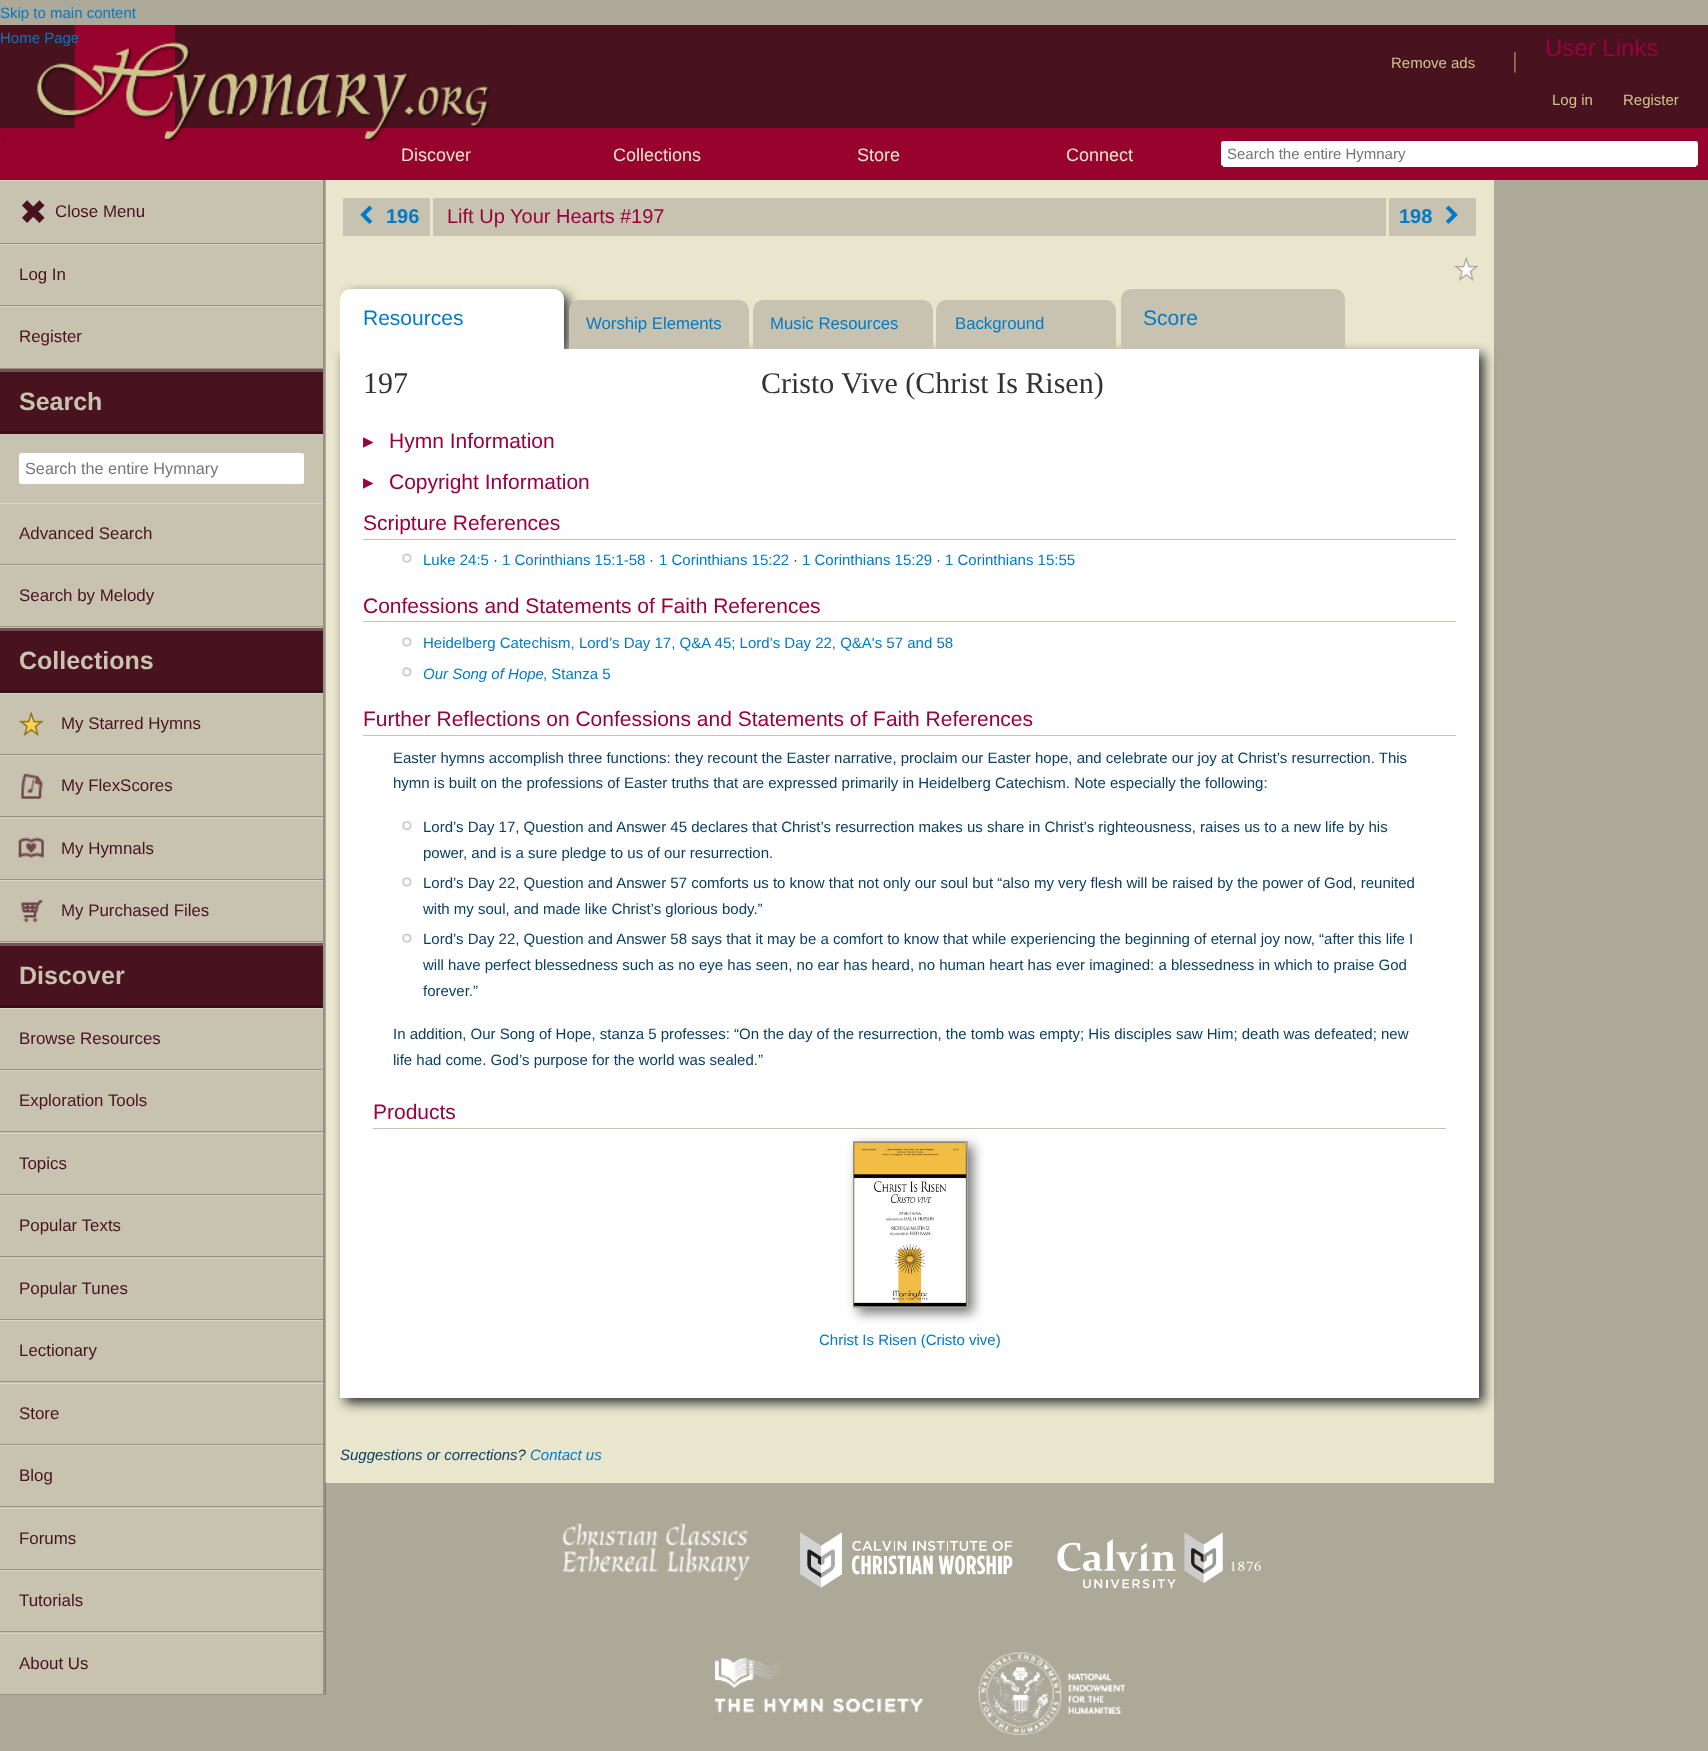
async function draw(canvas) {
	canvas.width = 1708;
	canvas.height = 1751;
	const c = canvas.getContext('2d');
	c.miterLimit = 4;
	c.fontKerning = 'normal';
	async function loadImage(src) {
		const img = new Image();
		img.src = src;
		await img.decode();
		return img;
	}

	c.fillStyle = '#ada999';
	c.fillRect(0, 0, 1708, 1751);
	c.font = '15px Liberation Sans';
	c.fillStyle = '#027ac6';
	c.fillText('Skip to main content', 0, 18);
	for (const [x, y, w, h, color] of [
		[0, 25, 1708, 103, '#49121f'],
		[75, 25, 100, 103, '#98032e'],
		[0, 128, 1708, 52, '#98032e'],
	]) {
		c.fillStyle = color;
		c.fillRect(x, y, w, h);
	}
	c.drawImage(await loadImage('img1.png'), 2, 25, 506, 118);
	c.fillStyle = '#027ac6';
	c.fillText('Home Page', 0, 43);
	c.fillStyle = '#cec48d';
	c.fillText('Remove ads', 1391, 68);
	c.font = '22px Liberation Sans';
	c.fillStyle = '#907159';
	c.fillText('|', 1512, 68);
	c.font = '24px Liberation Sans';
	c.fillStyle = '#98023e';
	c.fillText('User Links', 1545, 56);
	c.font = '15px Liberation Sans';
	c.fillStyle = '#cec48d';
	c.fillText('Log in', 1552, 105);
	c.fillText('Register', 1623, 105);
	c.font = '18px Liberation Sans';
	c.fillStyle = '#e9e6cd';
	for (const [text, x, y] of [
		['Discover', 401, 161],
		['Collections', 613, 161],
		['Store', 857, 161],
		['Connect', 1066, 161],
	]) {
		c.fillText(text, x, y);
	}
	c.fillStyle = '#fff';
	c.beginPath();
	c.roundRect(1221, 141, 477, 25, 2.5);
	c.fill();
	for (const [x, y, w, h, color] of [
		[1223, 141, 473, 1, '#fff'],
		[1223, 165, 473, 2, '#fff'],
		[1221, 143, 1, 22, '#fff'],
	]) {
		c.fillStyle = color;
		c.fillRect(x, y, w, h);
	}
	c.font = '15px Liberation Sans';
	c.fillStyle = '#757575';
	c.fillText('Search the entire Hymnary', 1227, 159);
	for (const [x, y, w, h, color] of [
		[0, 181, 323, 1513, '#c8c3b0'],
		[323, 180, 2, 1515, '#969284'],
		[0, 180, 323, 1, '#d6d2c4'],
		[0, 243, 323, 1, '#969284'],
	]) {
		c.fillStyle = color;
		c.fillRect(x, y, w, h);
	}
	c.font = '34px DejaVu Sans';
	c.fillStyle = '#49121f';
	c.fillText('✖', 19, 224);
	c.font = '16.9px Liberation Sans';
	c.fillText('Close Menu', 55, 217);
	c.fillStyle = '#d6d2c4';
	c.fillRect(0, 244, 323, 1);
	c.fillStyle = '#969284';
	c.fillRect(0, 305, 323, 1);
	c.fillStyle = '#49121f';
	c.fillText('Log In', 19, 280);
	c.fillStyle = '#d6d2c4';
	c.fillRect(0, 306, 323, 1);
	c.fillStyle = '#969284';
	c.fillRect(0, 368, 323, 1);
	c.fillStyle = '#49121f';
	c.fillText('Register', 19, 342);
	for (const [x, y, w, h, color] of [
		[0, 372, 323, 59, '#49121f'],
		[0, 369, 323, 3, '#774d57'],
		[0, 431, 323, 3, '#370e17'],
	]) {
		c.fillStyle = color;
		c.fillRect(x, y, w, h);
	}
	c.font = 'bold 25px Liberation Sans';
	c.fillStyle = '#c8c3b0';
	c.fillText('Search', 19, 410);
	c.fillStyle = '#fff';
	c.beginPath();
	c.roundRect(19, 453, 285, 31, 2.5);
	c.fill();
	c.font = '16.25px Liberation Sans';
	c.fillStyle = '#757575';
	c.fillText('Search the entire Hymnary', 25, 474);
	c.fillStyle = '#d6d2c4';
	c.fillRect(0, 503, 323, 1);
	c.fillStyle = '#969284';
	c.fillRect(0, 564, 323, 1);
	c.font = '16.9px Liberation Sans';
	c.fillStyle = '#49121f';
	c.fillText('Advanced Search', 19, 539);
	c.fillStyle = '#d6d2c4';
	c.fillRect(0, 565, 323, 1);
	c.fillStyle = '#969284';
	c.fillRect(0, 626, 323, 1);
	c.fillStyle = '#49121f';
	c.fillText('Search by Melody', 19, 601);
	for (const [x, y, w, h, color] of [
		[0, 631, 323, 59, '#49121f'],
		[0, 628, 323, 3, '#774d57'],
		[0, 690, 323, 3, '#370e17'],
	]) {
		c.fillStyle = color;
		c.fillRect(x, y, w, h);
	}
	c.font = 'bold 25px Liberation Sans';
	c.fillStyle = '#c8c3b0';
	c.fillText('Collections', 19, 669);
	c.fillStyle = '#d6d2c4';
	c.fillRect(0, 693, 323, 1);
	c.fillStyle = '#969284';
	c.fillRect(0, 754, 323, 1);
	c.drawImage(await loadImage('img2.png'), 18, 711, 26, 26);
	c.font = '16.9px Liberation Sans';
	c.fillStyle = '#49121f';
	c.fillText('My Starred Hymns', 61, 729);
	c.fillStyle = '#d6d2c4';
	c.fillRect(0, 755, 323, 1);
	c.fillStyle = '#969284';
	c.fillRect(0, 816, 323, 1);
	c.drawImage(await loadImage('img3.png'), 21, 773, 22, 26);
	c.fillStyle = '#49121f';
	c.fillText('My FlexScores', 61, 791);
	c.fillStyle = '#d6d2c4';
	c.fillRect(0, 818, 323, 1);
	c.fillStyle = '#969284';
	c.fillRect(0, 879, 323, 1);
	c.drawImage(await loadImage('img4.png'), 18, 837, 26, 21);
	c.fillStyle = '#49121f';
	c.fillText('My Hymnals', 61, 854);
	c.fillStyle = '#d6d2c4';
	c.fillRect(0, 880, 323, 1);
	c.fillStyle = '#969284';
	c.fillRect(0, 941, 323, 1);
	c.drawImage(await loadImage('img5.png'), 21, 899, 22, 24);
	c.fillStyle = '#49121f';
	c.fillText('My Purchased Files', 61, 916);
	for (const [x, y, w, h, color] of [
		[0, 946, 323, 59, '#49121f'],
		[0, 943, 323, 3, '#774d57'],
		[0, 1005, 323, 3, '#370e17'],
	]) {
		c.fillStyle = color;
		c.fillRect(x, y, w, h);
	}
	c.font = 'bold 25px Liberation Sans';
	c.fillStyle = '#c8c3b0';
	c.fillText('Discover', 19, 984);
	c.fillStyle = '#d6d2c4';
	c.fillRect(0, 1008, 323, 1);
	c.fillStyle = '#969284';
	c.fillRect(0, 1069, 323, 1);
	c.font = '16.9px Liberation Sans';
	c.fillStyle = '#49121f';
	c.fillText('Browse Resources', 19, 1044);
	c.fillStyle = '#d6d2c4';
	c.fillRect(0, 1070, 323, 1);
	c.fillStyle = '#969284';
	c.fillRect(0, 1131, 323, 1);
	c.fillStyle = '#49121f';
	c.fillText('Exploration Tools', 19, 1106);
	c.fillStyle = '#d6d2c4';
	c.fillRect(0, 1133, 323, 1);
	c.fillStyle = '#969284';
	c.fillRect(0, 1194, 323, 1);
	c.fillStyle = '#49121f';
	c.fillText('Topics', 19, 1169);
	c.fillStyle = '#d6d2c4';
	c.fillRect(0, 1195, 323, 1);
	c.fillStyle = '#969284';
	c.fillRect(0, 1256, 323, 1);
	c.fillStyle = '#49121f';
	c.fillText('Popular Texts', 19, 1231);
	c.fillStyle = '#d6d2c4';
	c.fillRect(0, 1258, 323, 1);
	c.fillStyle = '#969284';
	c.fillRect(0, 1319, 323, 1);
	c.fillStyle = '#49121f';
	c.fillText('Popular Tunes', 19, 1294);
	c.fillStyle = '#d6d2c4';
	c.fillRect(0, 1320, 323, 1);
	c.fillStyle = '#969284';
	c.fillRect(0, 1381, 323, 1);
	c.fillStyle = '#49121f';
	c.fillText('Lectionary', 19, 1356);
	c.fillStyle = '#d6d2c4';
	c.fillRect(0, 1383, 323, 1);
	c.fillStyle = '#969284';
	c.fillRect(0, 1444, 323, 1);
	c.fillStyle = '#49121f';
	c.fillText('Store', 19, 1419);
	c.fillStyle = '#d6d2c4';
	c.fillRect(0, 1445, 323, 1);
	c.fillStyle = '#969284';
	c.fillRect(0, 1506, 323, 1);
	c.fillStyle = '#49121f';
	c.fillText('Blog', 19, 1481);
	c.fillStyle = '#d6d2c4';
	c.fillRect(0, 1508, 323, 1);
	c.fillStyle = '#969284';
	c.fillRect(0, 1569, 323, 1);
	c.fillStyle = '#49121f';
	c.fillText('Forums', 19, 1544);
	c.fillStyle = '#d6d2c4';
	c.fillRect(0, 1570, 323, 1);
	c.fillStyle = '#969284';
	c.fillRect(0, 1631, 323, 1);
	c.fillStyle = '#49121f';
	c.fillText('Tutorials', 19, 1606);
	c.fillStyle = '#d6d2c4';
	c.fillRect(0, 1633, 323, 1);
	c.fillStyle = '#969284';
	c.fillRect(0, 1694, 323, 1);
	c.fillStyle = '#49121f';
	c.fillText('About Us', 19, 1669);
	for (const [x, y, w, h, color] of [
		[326, 180, 1168, 1303, '#e9e6cd'],
		[325, 180, 1, 1303, '#afad9a'],
		[343, 198, 87, 38, '#c8c3b0'],
	]) {
		c.fillStyle = color;
		c.fillRect(x, y, w, h);
	}
	c.drawImage(await loadImage('img6.png'), 360, 205, 12, 19);
	c.font = 'bold 20px Liberation Sans';
	c.fillStyle = '#027ac6';
	c.fillText('196', 386, 223);
	c.fillStyle = '#c8c3b0';
	c.fillRect(433, 198, 953, 38);
	c.font = '20px Liberation Sans';
	c.fillStyle = '#98023e';
	c.fillText('Lift Up Your Hearts', 447, 223);
	c.fillText('#197', 620, 223);
	c.fillStyle = '#c8c3b0';
	c.fillRect(1389, 198, 87, 38);
	c.font = 'bold 20px Liberation Sans';
	c.fillStyle = '#027ac6';
	c.fillText('198', 1399, 223);
	c.drawImage(await loadImage('img7.png'), 1446, 205, 12, 19);
	c.drawImage(await loadImage('img8.png'), 1454, 256, 25, 26);
	c.fillStyle = '#333';
	c.filter = 'blur(6px)';
	c.beginPath();
	c.rect(345, 354, 1139, 1049);
	c.fill();
	c.filter = 'none';
	c.fillStyle = '#fff';
	c.fillRect(340, 349, 1139, 1049);
	c.save();
	c.beginPath();
	c.rect(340, 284, 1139, 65);
	c.clip();
	c.fillStyle = '#333';
	c.filter = 'blur(6px)';
	c.beginPath();
	c.roundRect(345, 294, 224, 60, 10);
	c.fill();
	c.filter = 'none';
	c.restore();
	c.beginPath();
	c.roundRect(340, 289, 224, 60, [10, 10, 0, 0]);
	c.fill();
	c.font = '21px Liberation Sans';
	c.fillStyle = '#027ac6';
	c.fillText('Resources', 363, 325);
	c.fillStyle = '#c8c3b0';
	c.beginPath();
	c.roundRect(569, 300, 180, 49, [10, 10, 0, 0]);
	c.fill();
	c.font = '16.75px Liberation Sans';
	c.fillStyle = '#027ac6';
	c.fillText('Worship Elements', 586, 329);
	c.fillStyle = '#c8c3b0';
	c.beginPath();
	c.roundRect(753, 300, 180, 49, [10, 10, 0, 0]);
	c.fill();
	c.fillStyle = '#027ac6';
	c.fillText('Music Resources', 770, 329);
	c.fillStyle = '#c8c3b0';
	c.beginPath();
	c.roundRect(936, 300, 180, 49, [10, 10, 0, 0]);
	c.fill();
	c.fillStyle = '#027ac6';
	c.fillText('Background', 955, 329);
	c.fillStyle = '#c8c3b0';
	c.beginPath();
	c.roundRect(1121, 289, 224, 60, [10, 10, 0, 0]);
	c.fill();
	c.font = '21px Liberation Sans';
	c.fillStyle = '#027ac6';
	c.fillText('Score', 1143, 325);
	c.font = '30px Liberation Serif';
	c.fillStyle = '#333';
	c.fillText('197', 363, 393);
	c.fillText('Cristo Vive (Christ Is Risen)', 761, 393);
	c.font = '21px DejaVu Sans';
	c.fillStyle = '#98023e';
	c.fillText('▸', 363, 448);
	c.font = '21px Liberation Sans';
	c.fillText('Hymn Information', 389, 448);
	c.font = '21px DejaVu Sans';
	c.fillText('▸', 363, 489);
	c.font = '21px Liberation Sans';
	c.fillText('Copyright Information', 389, 489);
	c.fillStyle = '#c8c3b0';
	c.fillRect(363, 539, 1093, 1);
	c.fillStyle = '#98023e';
	c.fillText('Scripture References', 363, 530);
	c.drawImage(await loadImage('img9.png'), 402, 553, 10, 10);
	c.font = '15px Liberation Sans';
	c.fillStyle = '#027ac6';
	c.fillText('Luke 24:5', 423, 565);
	c.fillStyle = '#0a3f64';
	c.fillText('·', 493, 565);
	c.fillStyle = '#027ac6';
	c.fillText('1 Corinthians 15:1-58', 502, 565);
	c.fillStyle = '#0a3f64';
	c.fillText('·', 649, 565);
	c.fillStyle = '#027ac6';
	c.fillText('1 Corinthians 15:22', 659, 565);
	c.fillStyle = '#0a3f64';
	c.fillText('·', 793, 565);
	c.fillStyle = '#027ac6';
	c.fillText('1 Corinthians 15:29', 802, 565);
	c.fillStyle = '#0a3f64';
	c.fillText('·', 936, 565);
	c.fillStyle = '#027ac6';
	c.fillText('1 Corinthians 15:55', 945, 565);
	c.fillStyle = '#c8c3b0';
	c.fillRect(363, 621, 1093, 1);
	c.font = '21px Liberation Sans';
	c.fillStyle = '#98023e';
	c.fillText('Confessions and Statements of Faith References', 363, 613);
	c.drawImage(await loadImage('img10.png'), 402, 637, 10, 10);
	c.font = '15px Liberation Sans';
	c.fillStyle = '#027ac6';
	c.fillText('Heidelberg Catechism, Lord’s Day 17, Q&A 45; Lord’s Day 22, Q&A\'s 57 and 58', 423, 648);
	c.drawImage(await loadImage('img10.png'), 402, 667, 10, 10);
	c.font = 'italic 15px Liberation Sans';
	c.fillText('Our Song of Hope', 423, 679);
	c.font = '15px Liberation Sans';
	c.fillText(', Stanza 5', 543, 679);
	c.fillStyle = '#c8c3b0';
	c.fillRect(363, 735, 1093, 1);
	c.font = '21px Liberation Sans';
	c.fillStyle = '#98023e';
	c.fillText('Further Reflections on Confessions and Statements of Faith References', 363, 726);
	c.font = '15px Liberation Sans';
	c.fillStyle = '#0a3f64';
	c.fillText('Easter hymns accomplish three functions: they recount the Easter narrative, proclaim our Easter hope, and celebrate our joy at Christ’s resurrection. This', 393, 763);
	c.fillText('hymn is built on the professions of Easter truths that are expressed primarily in Heidelberg Catechism. Note especially the following:', 393, 788);
	c.drawImage(await loadImage('img11.png'), 402, 821, 10, 10);
	c.fillText('Lord’s Day 17, Question and Answer 45 declares that Christ’s resurrection makes us share in Christ’s righteousness, raises us to a new life by his', 423, 832);
	c.fillText('power, and is a sure pledge to us of our resurrection.', 423, 858);
	c.drawImage(await loadImage('img10.png'), 402, 877, 10, 10);
	c.fillText('Lord’s Day 22, Question and Answer 57 comforts us to know that not only our soul but “also my very flesh will be raised by the power of God, reunited', 423, 888);
	c.fillText('with my soul, and made like Christ’s glorious body.”', 423, 914);
	c.drawImage(await loadImage('img9.png'), 402, 933, 10, 10);
	for (const [text, x, y] of [
		['Lord’s Day 22, Question and Answer 58 says that it may be a comfort to know that while experiencing the beginning of eternal joy now, “after this life I', 423, 944],
		['will have perfect blessedness such as no eye has seen, no ear has heard, no human heart has ever imagined: a blessedness in which to praise God', 423, 970],
		['forever.”', 423, 996],
		['In addition, Our Song of Hope, stanza 5 professes: “On the day of the resurrection, the tomb was empty; His disciples saw Him; death was defeated; new', 393, 1039],
		['life had come. God’s purpose for the world was sealed.”', 393, 1065],
	]) {
		c.fillText(text, x, y);
	}
	c.fillStyle = '#c8c3b0';
	c.fillRect(373, 1128, 1073, 1);
	c.font = '21px Liberation Sans';
	c.fillStyle = '#98023e';
	c.fillText('Products', 373, 1119);
	c.fillStyle = '#777';
	c.filter = 'blur(6px)';
	c.beginPath();
	c.rect(858, 1146, 115, 167);
	c.fill();
	c.filter = 'none';
	c.strokeStyle = '#ada999';
	c.strokeRect(853.5, 1141.5, 114, 166);
	c.drawImage(await loadImage('img12.png'), 853, 1142, 114, 165);
	c.font = '15px Liberation Sans';
	c.fillStyle = '#027ac6';
	c.fillText('Christ Is Risen (Cristo vive)', 819, 1345);
	c.font = 'italic 15px Liberation Sans';
	c.fillStyle = '#0a3f64';
	c.fillText('Suggestions or corrections?', 340, 1460);
	c.fillStyle = '#027ac6';
	c.fillText('Contact us', 530, 1460);
	c.fillStyle = '#827f73';
	c.fillRect(325, 1483, 1, 212);
	c.drawImage(await loadImage('img13.png'), 562, 1523, 188, 58);
	c.drawImage(await loadImage('img14.png'), 800, 1532, 213, 56);
	c.drawImage(await loadImage('img15.png'), 1057, 1532, 204, 57);
	c.drawImage(await loadImage('img16.png'), 714, 1657, 209, 56);
	c.drawImage(await loadImage('img17.png'), 978, 1652, 147, 83);
}

draw(document.querySelector('canvas'));
